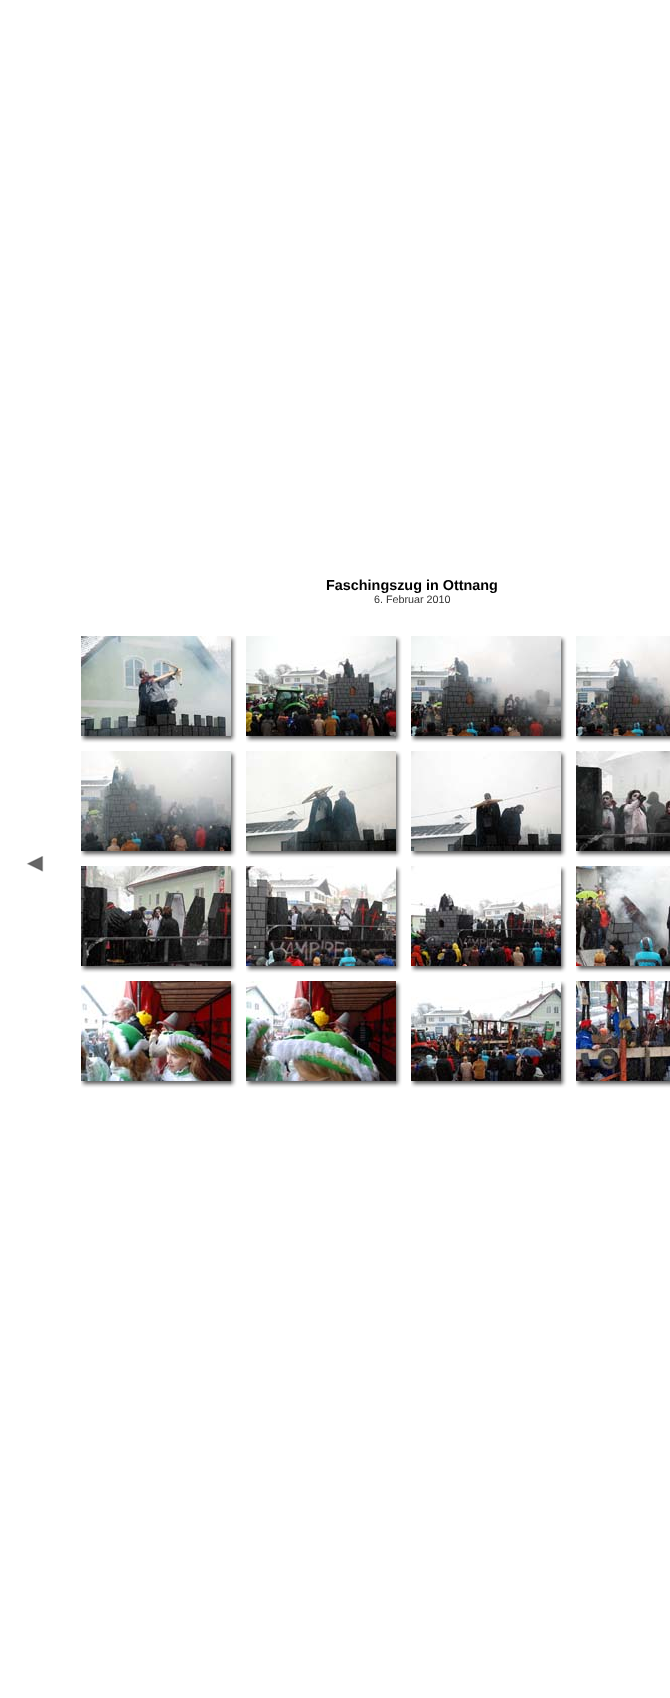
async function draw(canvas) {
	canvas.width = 670;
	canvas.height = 1698;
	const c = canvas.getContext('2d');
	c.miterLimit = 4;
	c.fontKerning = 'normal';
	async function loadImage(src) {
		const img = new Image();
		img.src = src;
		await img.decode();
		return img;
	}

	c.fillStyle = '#fff';
	c.fillRect(0, 0, 670, 1698);
	c.font = 'bold 14.4px Liberation Sans';
	c.fillStyle = '#000';
	c.fillText('Faschingszug in Ottnang', 326, 590);
	c.font = '10.75px Liberation Sans';
	c.fillStyle = '#333';
	c.fillText('6. Februar 2010', 374, 603);
	c.drawImage(await loadImage('img1.png'), 26, 856, 18, 16);
	c.drawImage(await loadImage('img2.png'), 81, 636, 150, 100);
	c.drawImage(await loadImage('img3.png'), 231, 643, 6, 93);
	c.drawImage(await loadImage('img4.png'), 231, 636, 6, 7);
	c.drawImage(await loadImage('img5.png'), 87, 736, 144, 7);
	c.drawImage(await loadImage('img6.png'), 81, 736, 6, 7);
	c.drawImage(await loadImage('img7.png'), 231, 736, 6, 7);
	c.drawImage(await loadImage('img8.png'), 246, 636, 150, 100);
	c.drawImage(await loadImage('img3.png'), 396, 643, 6, 93);
	c.drawImage(await loadImage('img4.png'), 396, 636, 6, 7);
	c.drawImage(await loadImage('img5.png'), 252, 736, 144, 7);
	c.drawImage(await loadImage('img6.png'), 246, 736, 6, 7);
	c.drawImage(await loadImage('img7.png'), 396, 736, 6, 7);
	c.drawImage(await loadImage('img9.png'), 411, 636, 150, 100);
	c.drawImage(await loadImage('img3.png'), 561, 643, 6, 93);
	c.drawImage(await loadImage('img4.png'), 561, 636, 6, 7);
	c.drawImage(await loadImage('img5.png'), 417, 736, 144, 7);
	c.drawImage(await loadImage('img6.png'), 411, 736, 6, 7);
	c.drawImage(await loadImage('img7.png'), 561, 736, 6, 7);
	c.drawImage(await loadImage('img10.png'), 576, 636, 94, 100);
	c.drawImage(await loadImage('img11.png'), 582, 736, 88, 7);
	c.drawImage(await loadImage('img6.png'), 576, 736, 6, 7);
	c.drawImage(await loadImage('img12.png'), 81, 751, 150, 100);
	c.drawImage(await loadImage('img3.png'), 231, 758, 6, 93);
	c.drawImage(await loadImage('img4.png'), 231, 751, 6, 7);
	c.drawImage(await loadImage('img5.png'), 87, 851, 144, 7);
	c.drawImage(await loadImage('img6.png'), 81, 851, 6, 7);
	c.drawImage(await loadImage('img7.png'), 231, 851, 6, 7);
	c.drawImage(await loadImage('img13.png'), 246, 751, 150, 100);
	c.drawImage(await loadImage('img3.png'), 396, 758, 6, 93);
	c.drawImage(await loadImage('img4.png'), 396, 751, 6, 7);
	c.drawImage(await loadImage('img5.png'), 252, 851, 144, 7);
	c.drawImage(await loadImage('img6.png'), 246, 851, 6, 7);
	c.drawImage(await loadImage('img7.png'), 396, 851, 6, 7);
	c.drawImage(await loadImage('img14.png'), 411, 751, 150, 100);
	c.drawImage(await loadImage('img3.png'), 561, 758, 6, 93);
	c.drawImage(await loadImage('img4.png'), 561, 751, 6, 7);
	c.drawImage(await loadImage('img5.png'), 417, 851, 144, 7);
	c.drawImage(await loadImage('img6.png'), 411, 851, 6, 7);
	c.drawImage(await loadImage('img7.png'), 561, 851, 6, 7);
	c.drawImage(await loadImage('img15.png'), 576, 751, 94, 100);
	c.drawImage(await loadImage('img11.png'), 582, 851, 88, 7);
	c.drawImage(await loadImage('img6.png'), 576, 851, 6, 7);
	c.drawImage(await loadImage('img16.png'), 81, 866, 150, 100);
	c.drawImage(await loadImage('img3.png'), 231, 873, 6, 93);
	c.drawImage(await loadImage('img4.png'), 231, 866, 6, 7);
	c.drawImage(await loadImage('img5.png'), 87, 966, 144, 7);
	c.drawImage(await loadImage('img6.png'), 81, 966, 6, 7);
	c.drawImage(await loadImage('img7.png'), 231, 966, 6, 7);
	c.drawImage(await loadImage('img17.png'), 246, 866, 150, 100);
	c.drawImage(await loadImage('img3.png'), 396, 873, 6, 93);
	c.drawImage(await loadImage('img4.png'), 396, 866, 6, 7);
	c.drawImage(await loadImage('img5.png'), 252, 966, 144, 7);
	c.drawImage(await loadImage('img6.png'), 246, 966, 6, 7);
	c.drawImage(await loadImage('img7.png'), 396, 966, 6, 7);
	c.drawImage(await loadImage('img18.png'), 411, 866, 150, 100);
	c.drawImage(await loadImage('img3.png'), 561, 873, 6, 93);
	c.drawImage(await loadImage('img4.png'), 561, 866, 6, 7);
	c.drawImage(await loadImage('img5.png'), 417, 966, 144, 7);
	c.drawImage(await loadImage('img6.png'), 411, 966, 6, 7);
	c.drawImage(await loadImage('img7.png'), 561, 966, 6, 7);
	c.drawImage(await loadImage('img19.png'), 576, 866, 94, 100);
	c.drawImage(await loadImage('img11.png'), 582, 966, 88, 7);
	c.drawImage(await loadImage('img6.png'), 576, 966, 6, 7);
	c.drawImage(await loadImage('img20.png'), 81, 981, 150, 100);
	c.drawImage(await loadImage('img3.png'), 231, 988, 6, 93);
	c.drawImage(await loadImage('img4.png'), 231, 981, 6, 7);
	c.drawImage(await loadImage('img5.png'), 87, 1081, 144, 7);
	c.drawImage(await loadImage('img6.png'), 81, 1081, 6, 7);
	c.drawImage(await loadImage('img7.png'), 231, 1081, 6, 7);
	c.drawImage(await loadImage('img21.png'), 246, 981, 150, 100);
	c.drawImage(await loadImage('img3.png'), 396, 988, 6, 93);
	c.drawImage(await loadImage('img4.png'), 396, 981, 6, 7);
	c.drawImage(await loadImage('img5.png'), 252, 1081, 144, 7);
	c.drawImage(await loadImage('img6.png'), 246, 1081, 6, 7);
	c.drawImage(await loadImage('img7.png'), 396, 1081, 6, 7);
	c.drawImage(await loadImage('img22.png'), 411, 981, 150, 100);
	c.drawImage(await loadImage('img3.png'), 561, 988, 6, 93);
	c.drawImage(await loadImage('img4.png'), 561, 981, 6, 7);
	c.drawImage(await loadImage('img5.png'), 417, 1081, 144, 7);
	c.drawImage(await loadImage('img6.png'), 411, 1081, 6, 7);
	c.drawImage(await loadImage('img7.png'), 561, 1081, 6, 7);
	c.drawImage(await loadImage('img23.png'), 576, 981, 94, 100);
	c.drawImage(await loadImage('img11.png'), 582, 1081, 88, 7);
	c.drawImage(await loadImage('img6.png'), 576, 1081, 6, 7);
}

draw(document.querySelector('canvas'));
